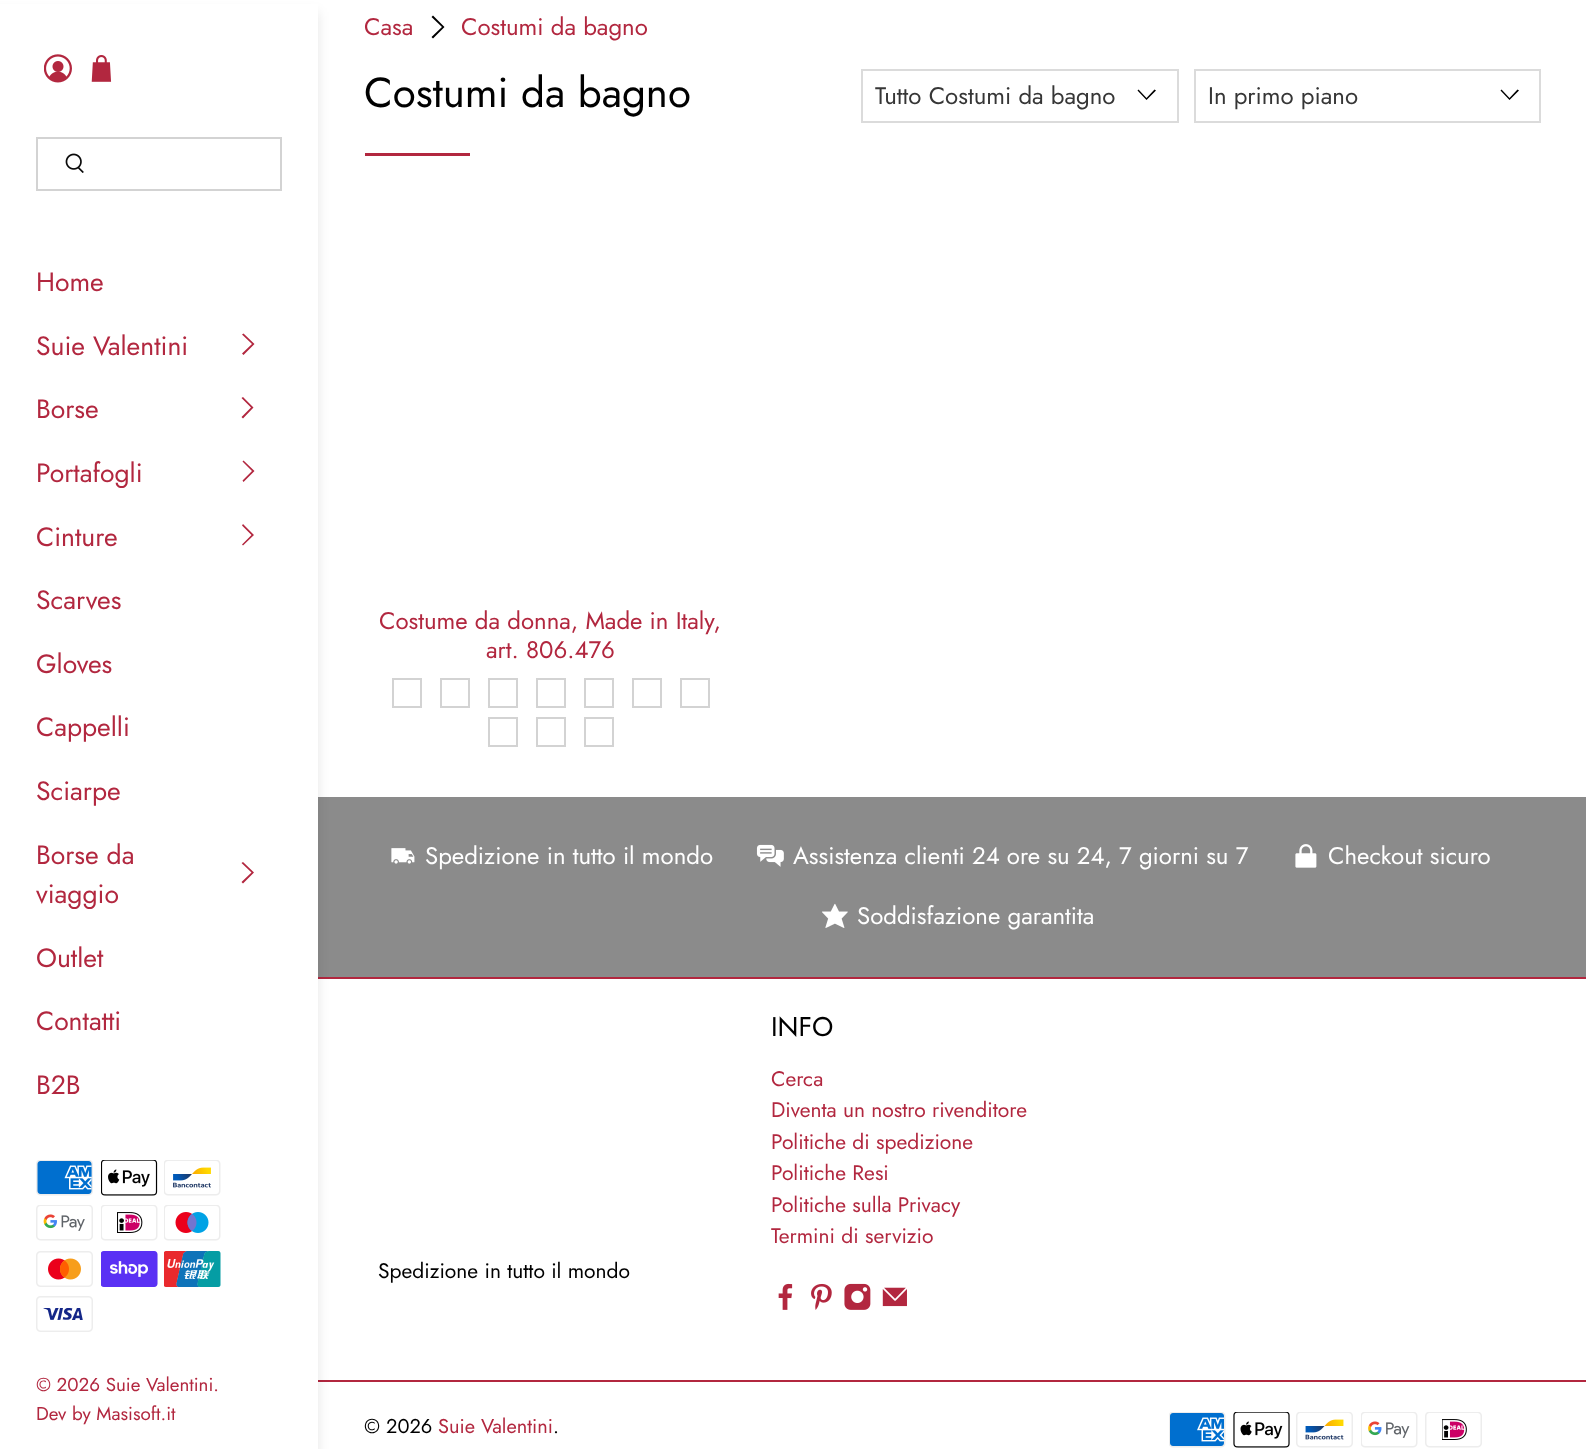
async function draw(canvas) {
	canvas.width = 1586;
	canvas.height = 1449;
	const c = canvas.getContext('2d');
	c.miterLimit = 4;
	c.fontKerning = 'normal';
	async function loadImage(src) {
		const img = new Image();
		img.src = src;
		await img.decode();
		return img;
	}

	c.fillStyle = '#fff';
	c.fillRect(0, 0, 1586, 1449);
	for (const [x, y, w, h, color] of [
		[318, 797, 1268, 180, '#8b8b8b'],
		[318, 977, 1268, 2, '#b2273f'],
		[318, 1380, 1268, 2, '#b2273f'],
	]) {
		c.fillStyle = color;
		c.fillRect(x, y, w, h);
	}
	c.fillStyle = '#0a0a0a1a';
	c.filter = 'blur(6px)';
	c.beginPath();
	c.rect(-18, 12, 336, 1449);
	c.fill();
	c.filter = 'none';
	c.font = '24px Jost';
	c.fillStyle = '#b2273f';
	c.fillText('Casa', 364, 35);
	c.fillStyle = '#000';
	c.beginPath();
	c.moveTo(433, 38.5);
	c.lineTo(431.5, 37);
	c.lineTo(442, 27);
	c.lineTo(431.5, 17);
	c.lineTo(433, 15.5);
	c.lineTo(444.5, 27);
	c.closePath();
	c.fill();
	c.fillStyle = '#b2273f';
	c.fillText('Costumi da bagno', 461, 35);
	c.font = '42px Jost';
	c.fillStyle = '#000';
	c.fillText('Costumi da bagno', 364, 107);
	c.fillStyle = '#b2273f';
	c.fillRect(365, 153, 105, 3);
	c.strokeStyle = '#dbdbdb';
	c.lineWidth = 2;
	c.strokeRect(862, 70, 316, 52);
	c.font = '24px Jost';
	c.fillStyle = '#363636';
	c.fillText('Tutto Costumi da bagno', 875, 104);
	c.fillStyle = '#000';
	c.beginPath();
	c.moveTo(1146.5, 100);
	c.lineTo(1137.5, 90.5);
	c.lineTo(1138.5, 89.5);
	c.lineTo(1146.5, 98);
	c.lineTo(1154.5, 89.5);
	c.lineTo(1156, 90.5);
	c.closePath();
	c.fill();
	c.strokeRect(1195, 70, 345, 52);
	c.fillStyle = '#363636';
	c.fillText('In primo piano', 1208, 104);
	c.fillStyle = '#000';
	c.beginPath();
	c.moveTo(1509.5, 100);
	c.lineTo(1500.5, 90.5);
	c.lineTo(1501.5, 89.5);
	c.lineTo(1509.5, 98);
	c.lineTo(1517.5, 89.5);
	c.lineTo(1519, 90.5);
	c.closePath();
	c.fill();
	c.fillStyle = '#b2273f';
	c.fillText('Costume da donna, Made in Italy,', 379, 629);
	c.fillText('art. 806.476', 486, 658);
	c.strokeStyle = '#d3d3d3';
	c.strokeRect(393, 679, 28, 28);
	c.strokeRect(441, 679, 28, 28);
	c.strokeRect(489, 679, 28, 28);
	c.strokeRect(537, 679, 28, 28);
	c.strokeRect(585, 679, 28, 28);
	c.strokeRect(633, 679, 28, 28);
	c.strokeRect(681, 679, 28, 28);
	c.strokeRect(489, 718, 28, 28);
	c.strokeRect(537, 718, 28, 28);
	c.strokeRect(585, 718, 28, 28);
	c.drawImage(await loadImage('img1.png'), 391, 848, 24, 16);
	c.fillStyle = '#fff';
	c.fillText('Spedizione in tutto il mondo', 425, 864);
	c.drawImage(await loadImage('img2.png'), 756, 844, 28, 23);
	c.fillText('Assistenza clienti 24 ore su 24, 7 giorni su 7', 793, 864);
	c.drawImage(await loadImage('img3.png'), 1295, 844, 22, 24);
	c.fillText('Checkout sicuro', 1328, 864);
	c.drawImage(await loadImage('img4.png'), 822, 903, 26, 25);
	c.fillText('Soddisfazione garantita', 857, 924);
	c.font = '27px Jost';
	c.fillStyle = '#000';
	c.fillText('INFO', 771, 1036);
	c.font = '21px Jost';
	c.fillStyle = '#b2273f';
	for (const [text, x, y] of [
		['Cerca', 771, 1086],
		['Diventa un nostro rivenditore', 771, 1117],
		['Politiche di spedizione', 771, 1149],
		['Politiche Resi', 771, 1180],
		['Politiche sulla Privacy', 771, 1212],
		['Termini di servizio', 771, 1243],
	]) {
		c.fillText(text, x, y);
	}
	c.drawImage(await loadImage('img5.png'), 778, 1283, 15, 27);
	c.drawImage(await loadImage('img6.png'), 811, 1283, 21, 27);
	c.drawImage(await loadImage('img7.png'), 844, 1283, 27, 27);
	c.drawImage(await loadImage('img8.png'), 882, 1287, 25, 20);
	c.fillStyle = '#000';
	c.fillText('Spedizione in tutto il mondo', 378, 1278);
	c.font = '20px Jost';
	c.fillText('© 2026', 364, 1433);
	c.fillStyle = '#b2273f';
	c.fillText('Suie Valentini', 438, 1433);
	c.fillStyle = '#000';
	c.fillText('.', 553, 1433);
	c.drawImage(await loadImage('img9.png'), 1169, 1412, 57, 36);
	c.drawImage(await loadImage('img10.png'), 1233, 1412, 57, 36);
	c.drawImage(await loadImage('img11.png'), 1296, 1412, 57, 36);
	c.drawImage(await loadImage('img12.png'), 1361, 1412, 57, 36);
	c.drawImage(await loadImage('img13.png'), 1425, 1412, 57, 36);
	c.fillStyle = '#fff';
	c.fillRect(0, 4, 318, 1445);
	c.drawImage(await loadImage('img14.png'), 44, 54, 28, 29);
	c.drawImage(await loadImage('img15.png'), 91, 55, 21, 27);
	c.strokeRect(37, 138, 244, 52);
	c.drawImage(await loadImage('img16.png'), 65, 153, 19, 20);
	c.font = '26.5px Jost';
	c.fillStyle = '#b2273f';
	c.fillText('Home', 36, 291);
	c.fillText('Suie Valentini', 36, 355);
	c.beginPath();
	c.moveTo(254.5, 344);
	c.lineTo(243.5, 355);
	c.lineTo(242, 353.5);
	c.lineTo(252, 344);
	c.lineTo(242, 334.5);
	c.lineTo(243.5, 333.5);
	c.closePath();
	c.fill();
	c.fillText('Borse', 36, 418);
	c.beginPath();
	c.moveTo(253.5, 407.5);
	c.lineTo(243, 418.5);
	c.lineTo(241.5, 417);
	c.lineTo(251, 407.5);
	c.lineTo(241.5, 398);
	c.lineTo(243, 397);
	c.closePath();
	c.fill();
	c.fillText('Portafogli', 36, 482);
	c.beginPath();
	c.moveTo(254.5, 471);
	c.lineTo(243.5, 482);
	c.lineTo(242.5, 480.5);
	c.lineTo(252, 471);
	c.lineTo(242.5, 461.5);
	c.lineTo(243.5, 460.5);
	c.closePath();
	c.fill();
	c.fillText('Cinture', 36, 546);
	c.beginPath();
	c.moveTo(254, 535);
	c.lineTo(243, 545.5);
	c.lineTo(242, 544.5);
	c.lineTo(251.5, 535);
	c.lineTo(242, 525.5);
	c.lineTo(243, 524);
	c.closePath();
	c.fill();
	for (const [text, x, y] of [
		['Scarves', 36, 609],
		['Gloves', 36, 673],
		['Cappelli', 36, 736],
		['Sciarpe', 36, 800],
		['Borse da', 36, 864],
	]) {
		c.fillText(text, x, y);
	}
	c.beginPath();
	c.moveTo(254, 872.5);
	c.lineTo(243, 883.5);
	c.lineTo(241.5, 882);
	c.lineTo(251.5, 872.5);
	c.lineTo(241.5, 863);
	c.lineTo(243, 862);
	c.closePath();
	c.fill();
	for (const [text, x, y] of [
		['viaggio', 36, 903],
		['Outlet', 36, 967],
		['Contatti', 36, 1030],
		['B2B', 36, 1094],
	]) {
		c.fillText(text, x, y);
	}
	c.drawImage(await loadImage('img17.png'), 36, 1160, 57, 36);
	c.drawImage(await loadImage('img18.png'), 101, 1160, 57, 36);
	c.drawImage(await loadImage('img19.png'), 164, 1160, 57, 36);
	c.drawImage(await loadImage('img20.png'), 36, 1205, 57, 36);
	c.drawImage(await loadImage('img21.png'), 101, 1205, 57, 36);
	c.drawImage(await loadImage('img22.png'), 164, 1205, 57, 36);
	c.drawImage(await loadImage('img23.png'), 36, 1251, 57, 36);
	c.drawImage(await loadImage('img24.png'), 101, 1251, 57, 36);
	c.drawImage(await loadImage('img25.png'), 164, 1251, 57, 36);
	c.drawImage(await loadImage('img26.png'), 36, 1296, 57, 36);
	c.font = '18.75px Jost';
	c.fillText('© 2026 Suie Valentini.', 36, 1391);
	c.fillText('Dev by Masisoft.it', 36, 1420);
}

draw(document.querySelector('canvas'));
